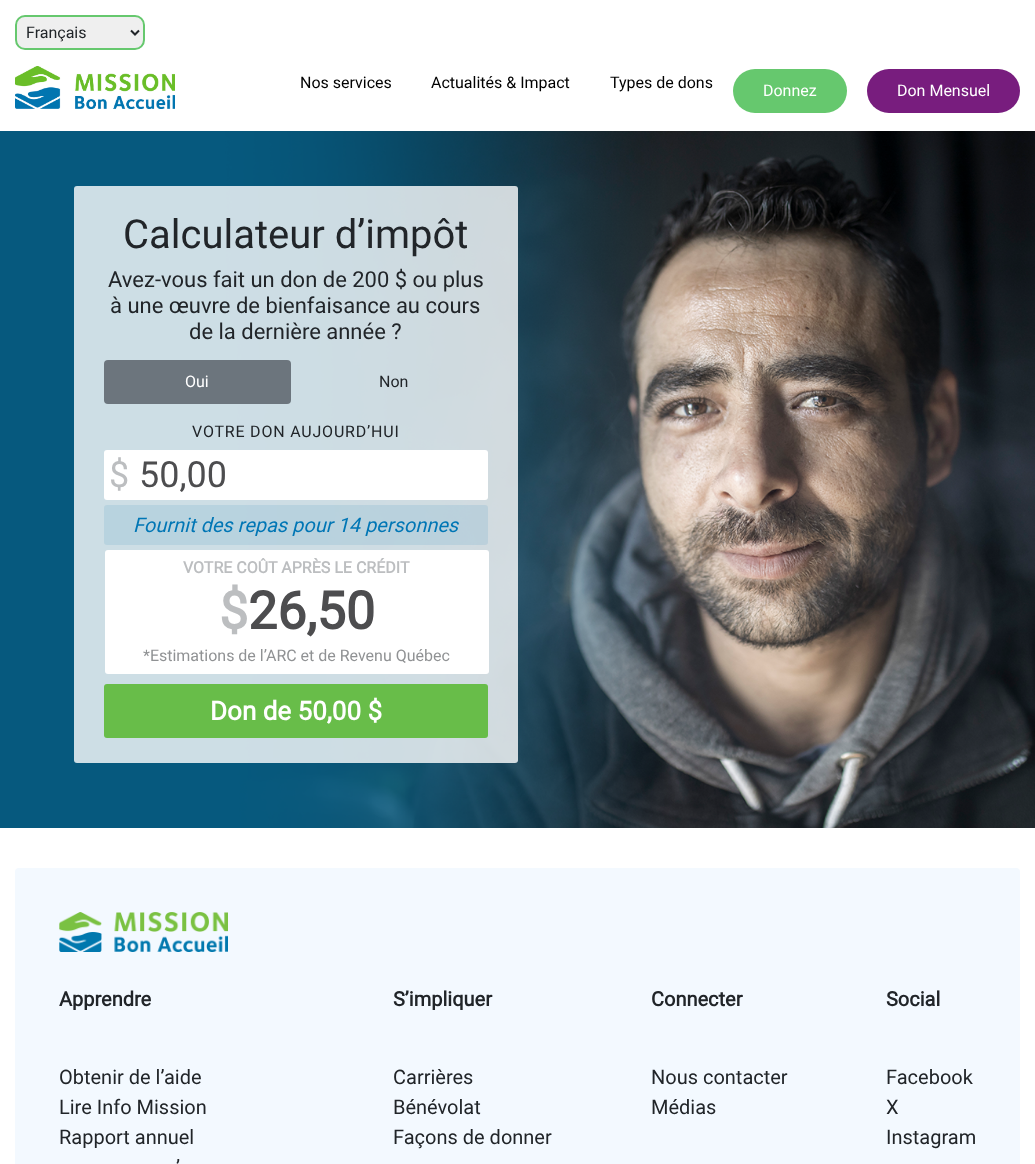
async function draw(canvas) {
	canvas.width = 1035;
	canvas.height = 1164;
	const c = canvas.getContext('2d');
	c.miterLimit = 4;
	c.fontKerning = 'normal';
	async function loadImage(src) {
		const img = new Image();
		img.src = src;
		await img.decode();
		return img;
	}

	c.fillStyle = '#fff';
	c.fillRect(0, 0, 1035, 1164);
	c.fillStyle = '#efefef';
	c.beginPath();
	c.roundRect(16, 16, 128, 33, 9);
	c.fill();
	c.strokeStyle = '#66c86e';
	c.lineWidth = 2;
	c.stroke();
	c.beginPath();
	c.moveTo(131, 30.5);
	c.lineTo(135, 34.5);
	c.lineTo(139, 30.5);
	c.strokeStyle = '#212529';
	c.stroke();
	c.font = '16px Roboto';
	c.fillStyle = '#212529';
	c.fillText('Français', 26, 38);
	c.drawImage(await loadImage('img1.png'), 15, 66, 160, 43);
	c.fillStyle = '#000';
	for (const [text, x, y] of [
		['Nos services', 300, 88],
		['Actualités & Impact', 431, 88],
		['Types de dons', 610, 88],
	]) {
		c.fillText(text, x, y);
	}
	c.fillStyle = '#66c86e';
	c.beginPath();
	c.roundRect(733, 69, 114, 44, 22);
	c.fill();
	c.fillStyle = '#fff';
	c.fillText('Donnez', 763, 96);
	c.fillStyle = '#781d7e';
	c.beginPath();
	c.roundRect(867, 69, 153, 44, 22);
	c.fill();
	c.fillStyle = '#fff';
	c.fillText('Don Mensuel', 897, 96);
	c.drawImage(await loadImage('img2.png'), 0, 131, 1035, 697);
	c.fillStyle = '#ffffffcc';
	c.beginPath();
	c.roundRect(74, 186, 444, 577, 3);
	c.fill();
	c.font = '40px Roboto';
	c.fillStyle = '#212529';
	c.fillText('Calculateur d’impôt', 123, 248);
	c.font = '22px Roboto';
	for (const [text, x, y] of [
		['Avez-vous fait un don de 200 $ ou plus', 108, 287],
		['à une œuvre de bienfaisance au cours', 110, 313],
		['de la dernière année ?', 189, 339],
	]) {
		c.fillText(text, x, y);
	}
	c.fillStyle = '#6c757d';
	c.beginPath();
	c.roundRect(104, 360, 187, 44, 4);
	c.fill();
	c.font = '16px Roboto';
	c.fillStyle = '#fff';
	c.fillText('Oui', 185, 387);
	c.fillStyle = '#212529';
	c.fillText('Non', 379, 387);
	c.letterSpacing = '0.8px';
	c.fillText('VOTRE DON AUJOURD’HUI', 192, 437);
	c.fillStyle = '#fff';
	c.beginPath();
	c.roundRect(104, 450, 384, 50, 3);
	c.fill();
	c.letterSpacing = '0px';
	c.font = '36px Roboto';
	c.fillStyle = '#bcbec0';
	c.fillText('$', 109, 487);
	c.fillStyle = '#4d4d4f';
	c.fillText('50,00', 139, 487);
	c.fillStyle = '#0076b51a';
	c.beginPath();
	c.roundRect(104, 505, 384, 40, 3);
	c.fill();
	c.font = 'italic 20px Roboto';
	c.fillStyle = '#0076b5';
	c.fillText('Fournit des repas pour 14 personnes', 133, 532);
	c.fillStyle = '#fff';
	c.beginPath();
	c.roundRect(105, 550, 384, 124, 3);
	c.fill();
	c.font = 'bold 16px Roboto';
	c.fillStyle = '#bcbec0';
	c.fillText('VOTRE COÛT APRÈS LE CRÉDIT', 183, 573);
	c.font = 'bold 52px Roboto';
	c.fillText('$', 219, 629);
	c.fillStyle = '#4d4d4f';
	c.fillText('26,50', 248, 629);
	c.font = '16px Roboto';
	c.fillStyle = '#909294';
	c.fillText('*Estimations de l’ARC et de Revenu Québec', 143, 661);
	c.fillStyle = '#68bd49';
	c.beginPath();
	c.roundRect(104, 684, 384, 54, 3);
	c.fill();
	c.font = 'bold 26px Roboto';
	c.fillStyle = '#fff';
	c.fillText('Don de 50,00 $', 210, 720);
	c.fillStyle = '#f3f9ff';
	c.beginPath();
	c.roundRect(15, 868, 1005, 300, 4);
	c.fill();
	c.drawImage(await loadImage('img3.png'), 59, 912, 169, 40);
	c.font = 'bold 20px Roboto';
	c.fillStyle = '#212529';
	c.fillText('Apprendre', 59, 1006);
	c.font = '20px Roboto';
	for (const [text, x, y] of [
		['Obtenir de l’aide', 59, 1084],
		['Lire Info Mission', 59, 1114],
		['Rapport annuel', 59, 1144],
		['’', 176, 1174],
	]) {
		c.fillText(text, x, y);
	}
	c.font = 'bold 20px Roboto';
	c.fillText('S’impliquer', 393, 1006);
	c.font = '20px Roboto';
	for (const [text, x, y] of [
		['Carrières', 393, 1084],
		['Bénévolat', 393, 1114],
		['Façons de donner', 393, 1144],
	]) {
		c.fillText(text, x, y);
	}
	c.font = 'bold 20px Roboto';
	c.fillText('Connecter', 651, 1006);
	c.font = '20px Roboto';
	c.fillText('Nous contacter', 651, 1084);
	c.fillText('Médias', 651, 1114);
	c.font = 'bold 20px Roboto';
	c.fillText('Social', 886, 1006);
	c.font = '20px Roboto';
	for (const [text, x, y] of [
		['Facebook', 886, 1084],
		['X', 886, 1114],
		['Instagram', 886, 1144],
	]) {
		c.fillText(text, x, y);
	}
}

draw(document.querySelector('canvas'));
